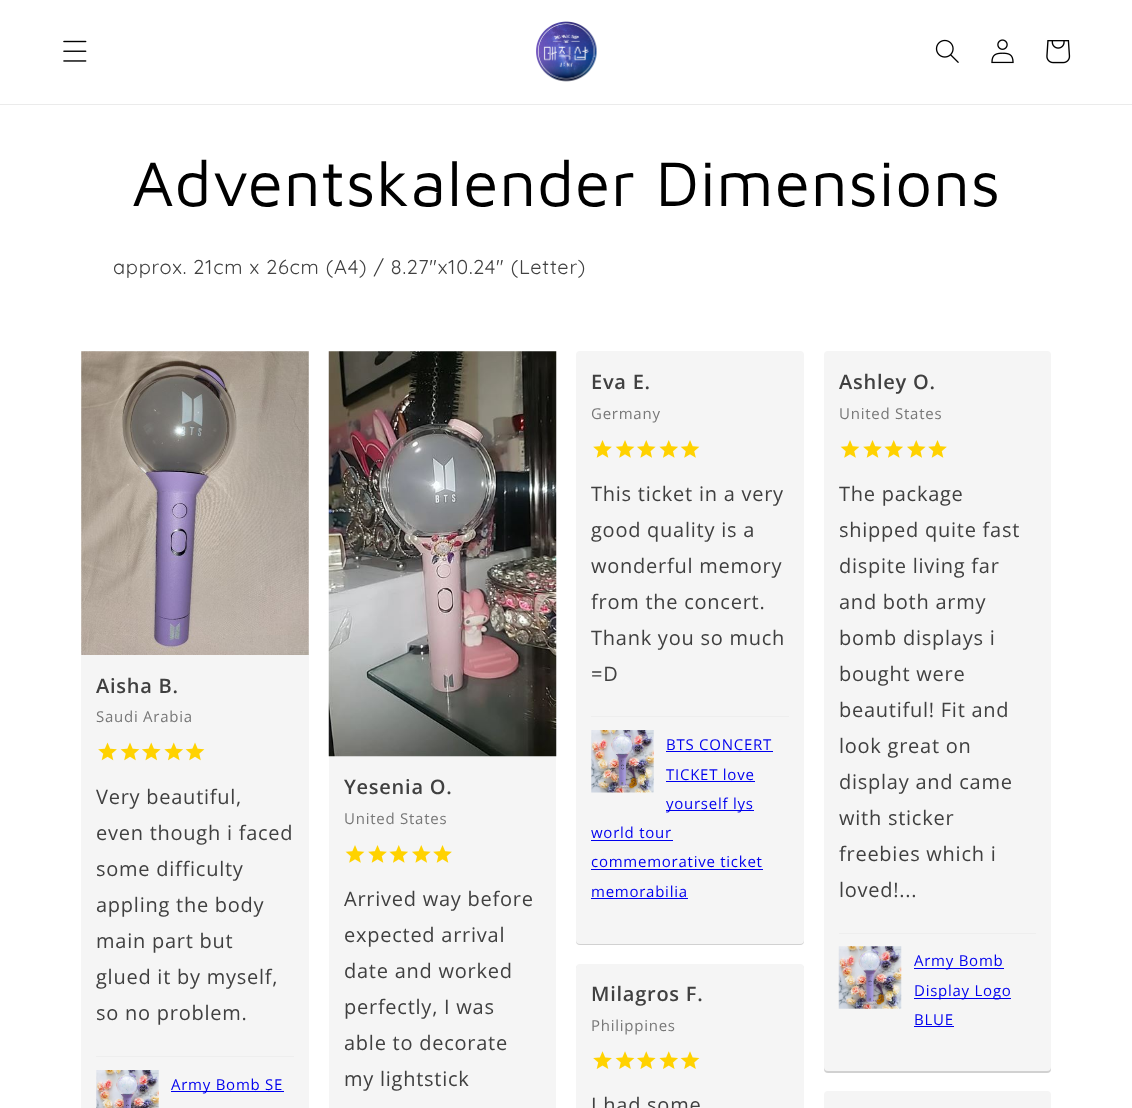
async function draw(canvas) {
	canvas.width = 1132;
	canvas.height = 1108;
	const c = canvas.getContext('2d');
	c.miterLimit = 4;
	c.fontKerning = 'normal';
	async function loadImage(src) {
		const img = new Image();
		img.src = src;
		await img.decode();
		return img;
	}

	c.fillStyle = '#fff';
	c.fillRect(0, 0, 1132, 1108);
	c.fillStyle = '#ebebeb';
	c.fillRect(0, 104, 1132, 1);
	c.drawImage(await loadImage('img1.png'), 63, 40, 24, 22);
	c.drawImage(await loadImage('img2.png'), 536, 21, 61, 61);
	c.drawImage(await loadImage('img3.png'), 935, 39, 24, 24);
	c.drawImage(await loadImage('img4.png'), 991, 39, 23, 25);
	c.drawImage(await loadImage('img5.png'), 1046, 40, 25, 24);
	c.letterSpacing = '0.75px';
	c.font = '65px Maven Pro';
	c.fillStyle = '#000';
	c.fillText('Adventskalender Dimensions', 132, 206);
	c.font = '20px Quicksand';
	c.fillStyle = '#404040';
	c.fillText('approx. 21cm x 26cm (A4) / 8.27"x10.24" (Letter)', 113, 274);
	c.fillStyle = '#f5f5f5';
	c.beginPath();
	c.roundRect(81, 351, 228, 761, 4);
	c.fill();
	c.drawImage(await loadImage('img6.png'), 81, 351, 228, 304);
	c.font = '600 20px Open Sans';
	c.fillStyle = '#404040';
	c.fillText('Aisha B.', 96, 693);
	c.font = '15px Open Sans';
	c.fillStyle = '#777';
	c.fillText('Saudi Arabia', 96, 722);
	c.drawImage(await loadImage('img7.png'), 98, 742, 19, 19);
	c.drawImage(await loadImage('img8.png'), 120, 742, 20, 19);
	c.drawImage(await loadImage('img9.png'), 142, 742, 19, 19);
	c.drawImage(await loadImage('img10.png'), 164, 742, 19, 19);
	c.drawImage(await loadImage('img8.png'), 185, 742, 20, 19);
	c.font = '20px Open Sans';
	c.fillStyle = '#404040';
	for (const [text, x, y] of [
		['Very beautiful,', 96, 804],
		['even though i faced', 96, 840],
		['some difficulty', 96, 876],
		['appling the body', 96, 912],
		['main part but', 96, 948],
		['glued it by myself,', 96, 984],
		['so no problem.', 96, 1020],
	]) {
		c.fillText(text, x, y);
	}
	c.fillStyle = '#eee';
	c.fillRect(96, 1056, 198, 1);
	c.drawImage(await loadImage('img11.png'), 96, 1070, 63, 38);
	c.fillStyle = '#00e';
	c.fillRect(171, 1091, 113, 1);
	c.font = '15px Open Sans';
	c.fillText('Army Bomb SE', 171, 1090);
	c.fillStyle = '#f5f5f5';
	c.beginPath();
	c.roundRect(329, 351, 227, 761, 4);
	c.fill();
	c.drawImage(await loadImage('img12.png'), 328, 351, 229, 406);
	c.font = '600 20px Open Sans';
	c.fillStyle = '#404040';
	c.fillText('Yesenia O.', 344, 794);
	c.font = '15px Open Sans';
	c.fillStyle = '#777';
	c.fillText('United States', 344, 824);
	c.drawImage(await loadImage('img13.png'), 345, 845, 20, 18);
	c.drawImage(await loadImage('img14.png'), 368, 845, 19, 18);
	c.drawImage(await loadImage('img15.png'), 389, 845, 19, 18);
	c.drawImage(await loadImage('img16.png'), 412, 845, 19, 18);
	c.drawImage(await loadImage('img14.png'), 433, 845, 19, 18);
	c.font = '20px Open Sans';
	c.fillStyle = '#404040';
	for (const [text, x, y] of [
		['Arrived way before', 344, 906],
		['expected arrival', 344, 942],
		['date and worked', 344, 978],
		['perfectly, I was', 344, 1014],
		['able to decorate', 344, 1050],
		['my lightstick', 344, 1086],
	]) {
		c.fillText(text, x, y);
	}
	c.fillStyle = '#0000002e';
	c.filter = 'blur(0.5px)';
	c.beginPath();
	c.roundRect(576, 353, 228, 592, 4);
	c.fill();
	c.filter = 'none';
	c.fillStyle = '#f5f5f5';
	c.beginPath();
	c.roundRect(576, 351, 228, 593, 4);
	c.fill();
	c.font = '600 20px Open Sans';
	c.fillStyle = '#404040';
	c.fillText('Eva E.', 591, 389);
	c.font = '15px Open Sans';
	c.fillStyle = '#777';
	c.fillText('Germany', 591, 419);
	c.drawImage(await loadImage('img14.png'), 593, 440, 19, 18);
	c.drawImage(await loadImage('img13.png'), 615, 440, 20, 18);
	c.drawImage(await loadImage('img16.png'), 637, 440, 19, 18);
	c.drawImage(await loadImage('img15.png'), 659, 440, 19, 18);
	c.drawImage(await loadImage('img13.png'), 680, 440, 20, 18);
	c.font = '20px Open Sans';
	c.fillStyle = '#404040';
	for (const [text, x, y] of [
		['This ticket in a very', 591, 501],
		['good quality is a', 591, 537],
		['wonderful memory', 591, 573],
		['from the concert.', 591, 609],
		['Thank you so much', 591, 645],
		['=D', 591, 681],
	]) {
		c.fillText(text, x, y);
	}
	c.fillStyle = '#eee';
	c.fillRect(591, 716, 198, 1);
	c.drawImage(await loadImage('img17.png'), 591, 730, 63, 63);
	c.font = '15px Open Sans';
	c.fillStyle = '#00e';
	c.fillText('BTS CONCERT', 666, 750);
	c.fillRect(666, 751, 107, 1);
	c.fillText('TICKET love', 666, 780);
	c.fillRect(666, 781, 89, 1);
	c.fillRect(666, 810, 88, 1);
	c.fillText('yourself lys', 666, 809);
	c.fillText('world tour', 591, 838);
	c.fillRect(591, 840, 82, 1);
	c.fillText('commemorative ticket', 591, 867);
	c.fillRect(591, 869, 172, 1);
	c.fillText('memorabilia', 591, 897);
	c.fillRect(591, 898, 97, 1);
	c.fillStyle = '#0000002e';
	c.filter = 'blur(0.5px)';
	c.beginPath();
	c.roundRect(824, 353, 227, 720, 4);
	c.fill();
	c.filter = 'none';
	c.fillStyle = '#f5f5f5';
	c.beginPath();
	c.roundRect(824, 351, 227, 720, 4);
	c.fill();
	c.font = '600 20px Open Sans';
	c.fillStyle = '#404040';
	c.fillText('Ashley O.', 839, 389);
	c.font = '15px Open Sans';
	c.fillStyle = '#777';
	c.fillText('United States', 839, 419);
	c.drawImage(await loadImage('img13.png'), 840, 440, 20, 18);
	c.drawImage(await loadImage('img14.png'), 863, 440, 19, 18);
	c.drawImage(await loadImage('img15.png'), 884, 440, 19, 18);
	c.drawImage(await loadImage('img16.png'), 907, 440, 19, 18);
	c.drawImage(await loadImage('img14.png'), 928, 440, 19, 18);
	c.font = '20px Open Sans';
	c.fillStyle = '#404040';
	for (const [text, x, y] of [
		['The package', 839, 501],
		['shipped quite fast', 839, 537],
		['dispite living far', 839, 573],
		['and both army', 839, 609],
		['bomb displays i', 839, 645],
		['bought were', 839, 681],
		['beautiful! Fit and', 839, 717],
		['look great on', 839, 753],
		['display and came', 839, 789],
		['with sticker', 839, 825],
		['freebies which i', 839, 861],
		['loved!...', 839, 897],
	]) {
		c.fillText(text, x, y);
	}
	c.fillStyle = '#eee';
	c.fillRect(839, 933, 197, 1);
	c.drawImage(await loadImage('img18.png'), 838, 946, 64, 63);
	c.fillStyle = '#00e';
	c.fillRect(914, 968, 90, 1);
	c.font = '15px Open Sans';
	c.fillText('Army Bomb', 914, 966);
	c.fillRect(914, 998, 97, 1);
	c.fillText('Display Logo', 914, 996);
	c.fillText('BLUE', 914, 1025);
	c.fillRect(914, 1026, 40, 1);
	c.fillStyle = '#0000002e';
	c.filter = 'blur(0.5px)';
	c.beginPath();
	c.roundRect(576, 965, 228, 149, 4);
	c.fill();
	c.filter = 'none';
	c.fillStyle = '#f5f5f5';
	c.beginPath();
	c.roundRect(576, 964, 228, 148, 4);
	c.fill();
	c.font = '600 20px Open Sans';
	c.fillStyle = '#404040';
	c.fillText('Milagros F.', 591, 1001);
	c.font = '15px Open Sans';
	c.fillStyle = '#777';
	c.fillText('Philippines', 591, 1031);
	c.drawImage(await loadImage('img19.png'), 593, 1051, 19, 18);
	c.drawImage(await loadImage('img20.png'), 615, 1051, 20, 18);
	c.drawImage(await loadImage('img21.png'), 637, 1051, 19, 18);
	c.drawImage(await loadImage('img22.png'), 659, 1051, 19, 18);
	c.drawImage(await loadImage('img20.png'), 680, 1051, 20, 18);
	c.font = '20px Open Sans';
	c.fillStyle = '#404040';
	c.fillText('I had some', 591, 1112);
	c.fillStyle = '#f5f5f5';
	c.beginPath();
	c.roundRect(824, 1091, 227, 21, 4);
	c.fill();
}

draw(document.querySelector('canvas'));
